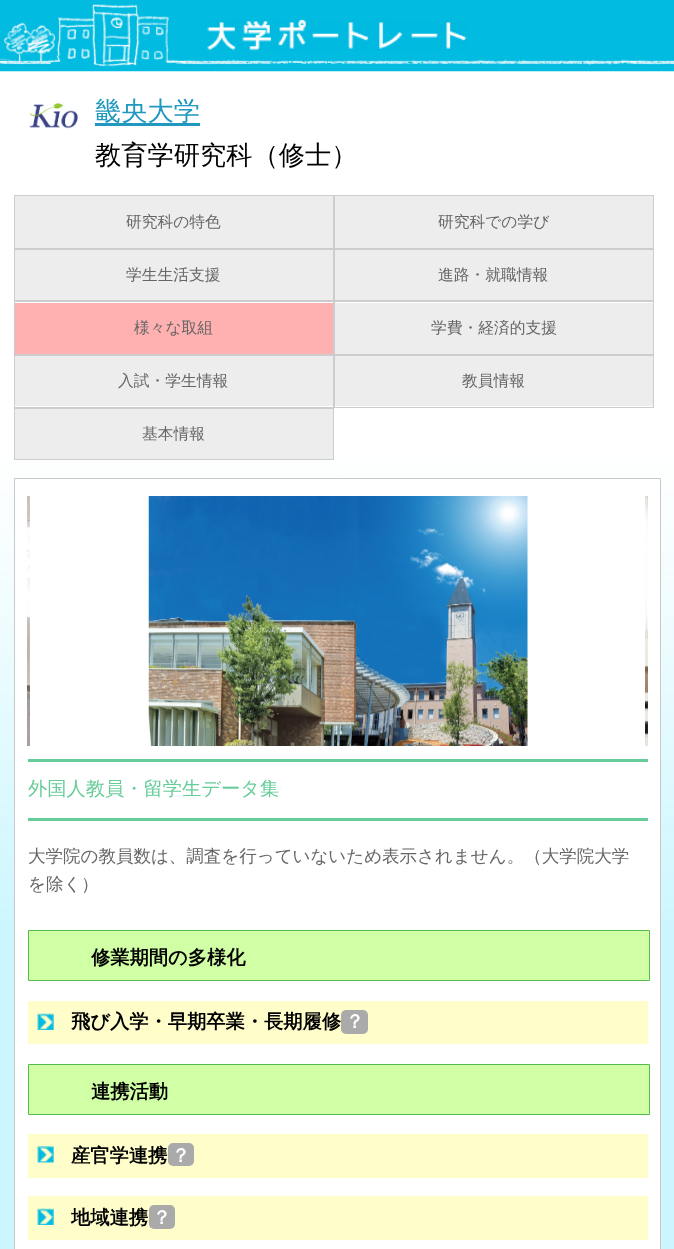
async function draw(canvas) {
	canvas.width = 674;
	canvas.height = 1249;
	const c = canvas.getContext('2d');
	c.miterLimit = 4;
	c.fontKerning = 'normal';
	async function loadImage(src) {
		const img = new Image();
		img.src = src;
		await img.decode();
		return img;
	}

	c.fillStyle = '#cbf6ff';
	c.fillRect(0, 0, 674, 1249);
	c.drawImage(await loadImage('img1.png'), 0, 71, 674, 850);
	c.fillStyle = '#02bbe0';
	c.fillRect(0, 0, 674, 4);
	c.drawImage(await loadImage('img2.png'), 0, 4, 674, 68);
	c.drawImage(await loadImage('img3.png'), 207, 19, 260, 32);
	c.drawImage(await loadImage('img4.png'), 29, 103, 49, 26);
	c.fillStyle = '#2198bf';
	c.fillRect(95, 123, 105, 3);
	c.font = '500 26.25px WenQuanYi Zen Hei';
	c.fillText('畿央大学', 95, 120);
	c.fillStyle = '#000';
	c.fillText('教育学研究科（修士）', 95, 164);
	c.strokeStyle = '#cdcdcd';
	c.strokeRect(14.5, 195.5, 319, 53);
	c.fillStyle = '#ededed';
	c.fillRect(15, 196, 318, 52);
	c.font = '500 15.75px WenQuanYi Zen Hei';
	c.fillStyle = '#666';
	c.fillText('研究科の特色', 126, 227);
	c.strokeRect(334.5, 195.5, 319, 53);
	c.fillStyle = '#ededed';
	c.fillRect(335, 196, 318, 52);
	c.fillStyle = '#666';
	c.fillText('研究科での学び', 438, 227);
	c.strokeRect(14.5, 249.5, 319, 51);
	c.fillStyle = '#ededed';
	c.fillRect(15, 250, 318, 50);
	c.fillStyle = '#666';
	c.fillText('学生生活支援', 126, 280);
	c.strokeRect(334.5, 249.5, 319, 51);
	c.fillStyle = '#ededed';
	c.fillRect(335, 250, 318, 50);
	c.fillStyle = '#666';
	c.fillText('進路・就職情報', 438, 280);
	c.strokeRect(14.5, 301.5, 319, 53);
	c.fillStyle = '#ffb0b0';
	c.fillRect(15, 303, 318, 51);
	c.fillStyle = '#666';
	c.fillText('様々な取組', 134, 333);
	c.strokeRect(334.5, 301.5, 319, 53);
	c.fillStyle = '#ededed';
	c.fillRect(335, 303, 318, 51);
	c.fillStyle = '#666';
	c.fillText('学費・経済的支援', 431, 333);
	c.strokeRect(14.5, 355.5, 319, 52);
	c.fillStyle = '#ededed';
	c.fillRect(15, 356, 318, 50);
	c.fillStyle = '#666';
	c.fillText('入試・学生情報', 118, 386);
	c.strokeRect(334.5, 355.5, 319, 52);
	c.fillStyle = '#ededed';
	c.fillRect(335, 356, 318, 50);
	c.fillStyle = '#666';
	c.fillText('教員情報', 462, 386);
	c.strokeRect(14.5, 408.5, 319, 51);
	c.fillStyle = '#ededed';
	c.fillRect(15, 409, 318, 50);
	c.fillStyle = '#666';
	c.fillText('基本情報', 142, 439);
	c.fillStyle = '#fff';
	c.beginPath();
	c.rect(14.5, 478.5, 646, 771);
	c.fill();
	c.strokeStyle = '#c8c8c8';
	c.stroke();
	c.drawImage(await loadImage('img5.png'), 27, 496, 3, 250);
	c.drawImage(await loadImage('img6.png'), 148, 496, 380, 250);
	c.drawImage(await loadImage('img7.png'), 645, 496, 3, 250);
	c.fillStyle = '#6c9';
	c.fillRect(28, 759, 620, 3);
	c.fillRect(28, 818, 620, 3);
	c.font = '500 19.25px WenQuanYi Zen Hei';
	c.fillText('外国人教員・留学生データ集', 28, 795);
	c.font = '500 17.5px WenQuanYi Zen Hei';
	c.fillStyle = '#666';
	c.fillText('大学院の教員数は、調査を行っていないため表示されません。（大学院大学', 28, 862);
	c.fillText('を除く）', 28, 890);
	c.fillStyle = '#d1ffa5';
	c.beginPath();
	c.rect(28.5, 930.5, 621, 50);
	c.fill();
	c.strokeStyle = '#54bc4d';
	c.stroke();
	c.font = 'bold 19.25px WenQuanYi Zen Hei';
	c.fillStyle = '#000';
	c.fillText('修業期間の多様化', 91, 964);
	c.fillStyle = '#fffdca';
	c.fillRect(28, 1001, 620, 43);
	c.drawImage(await loadImage('img8.png'), 37, 1013, 17, 17);
	c.fillStyle = '#000';
	c.fillText('飛び入学・早期卒業・長期履修', 71, 1028);
	c.fillStyle = '#aaa';
	c.beginPath();
	c.roundRect(341, 1010, 27, 24, 5);
	c.fill();
	c.fillStyle = '#fff';
	c.fillText('？', 345, 1028);
	c.fillStyle = '#d1ffa5';
	c.beginPath();
	c.rect(28.5, 1064.5, 621, 50);
	c.fill();
	c.stroke();
	c.fillStyle = '#000';
	c.fillText('連携活動', 91, 1098);
	c.fillStyle = '#fffdca';
	c.fillRect(28, 1134, 620, 44);
	c.drawImage(await loadImage('img9.png'), 37, 1146, 17, 17);
	c.fillStyle = '#000';
	c.fillText('産官学連携', 71, 1162);
	c.fillStyle = '#aaa';
	c.beginPath();
	c.roundRect(168, 1143, 26, 23, 5);
	c.fill();
	c.fillStyle = '#fff';
	c.fillText('？', 171, 1162);
	c.fillStyle = '#fffdca';
	c.fillRect(28, 1196, 620, 44);
	c.drawImage(await loadImage('img8.png'), 37, 1208, 17, 17);
	c.fillStyle = '#000';
	c.fillText('地域連携', 71, 1224);
	c.fillStyle = '#aaa';
	c.beginPath();
	c.roundRect(149, 1205, 26, 24, 5);
	c.fill();
	c.fillStyle = '#fff';
	c.fillText('？', 152, 1224);
}

draw(document.querySelector('canvas'));
